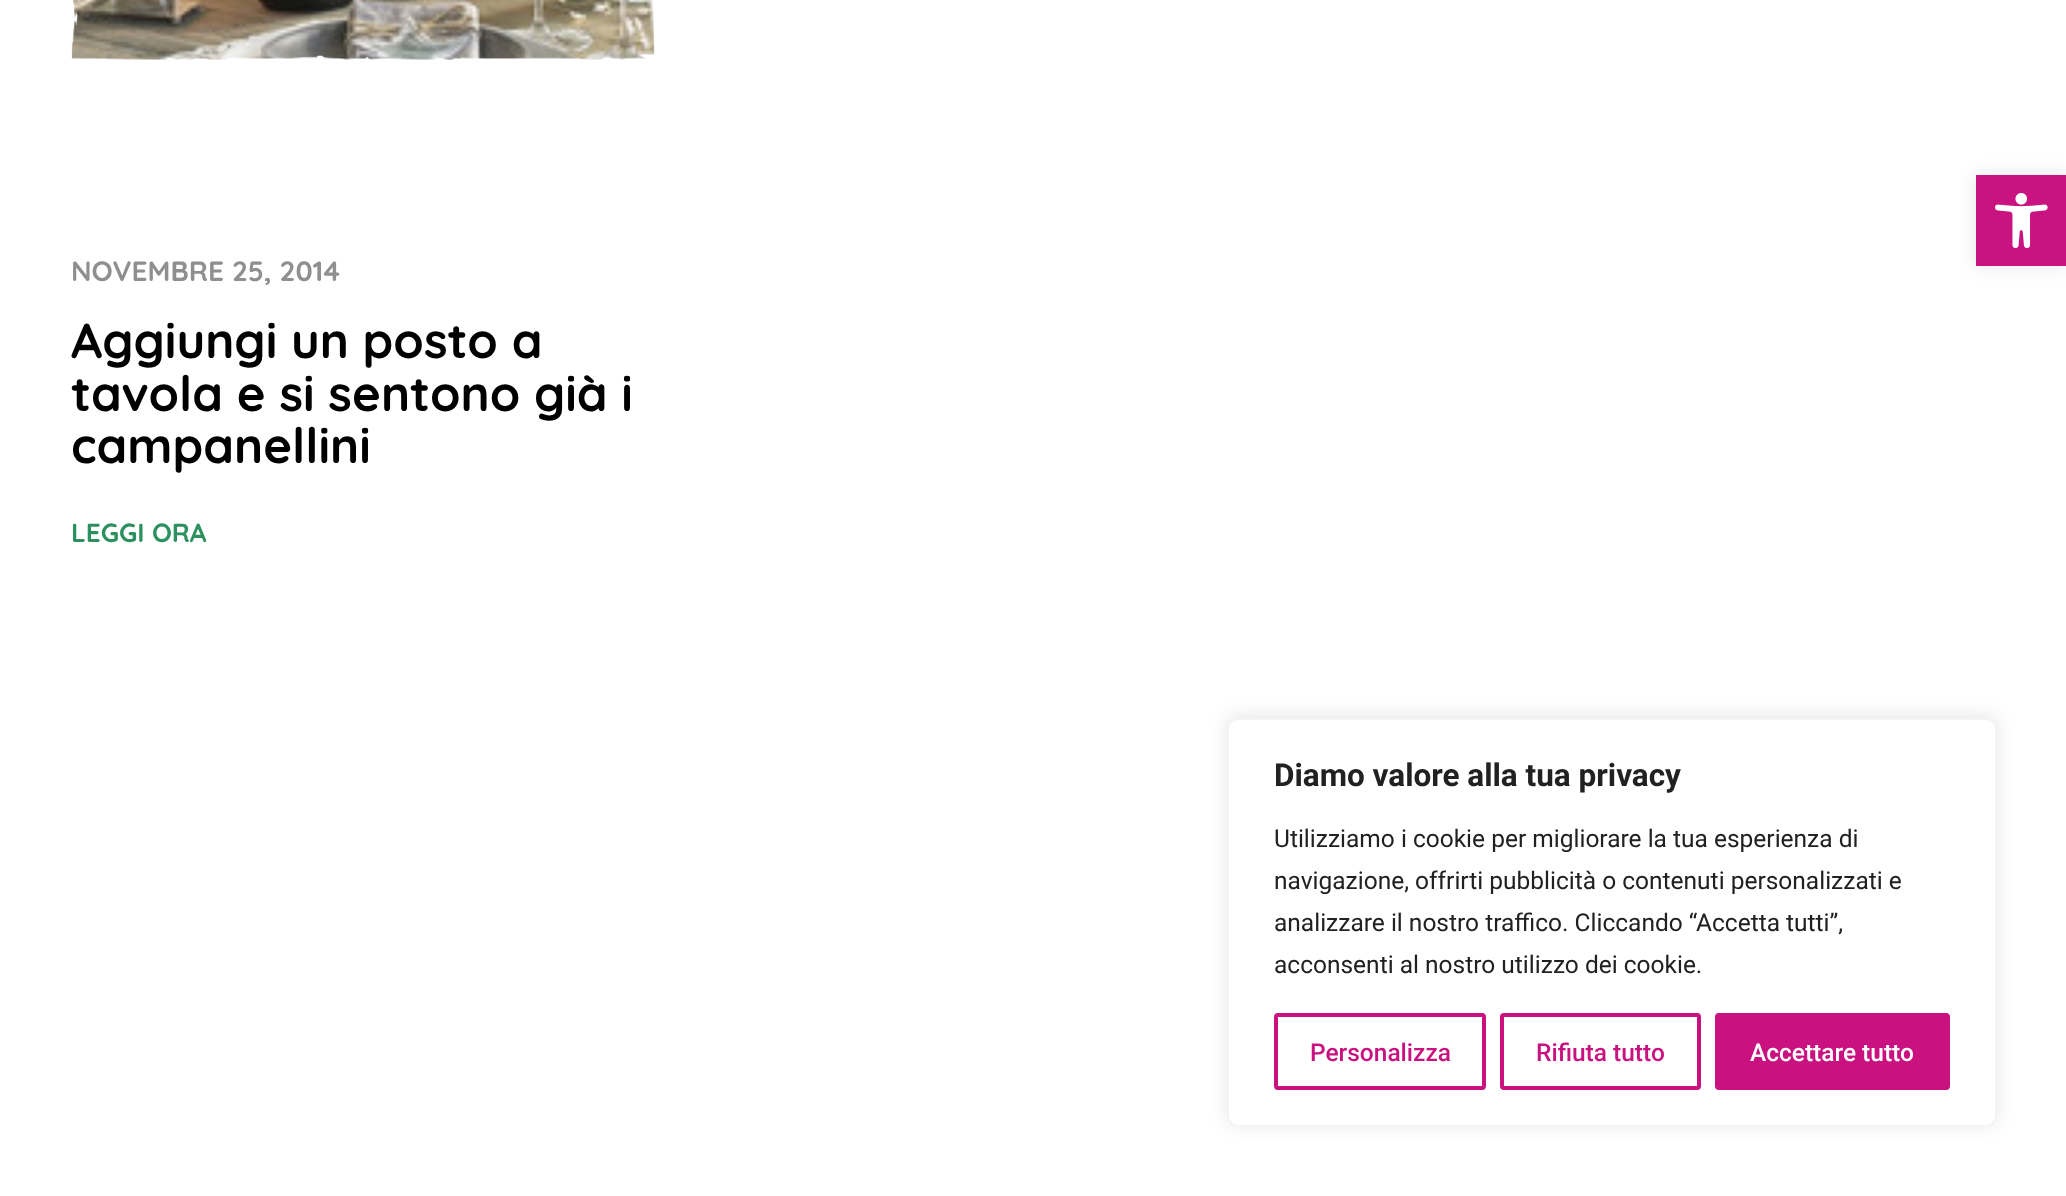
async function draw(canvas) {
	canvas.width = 2066;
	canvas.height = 1196;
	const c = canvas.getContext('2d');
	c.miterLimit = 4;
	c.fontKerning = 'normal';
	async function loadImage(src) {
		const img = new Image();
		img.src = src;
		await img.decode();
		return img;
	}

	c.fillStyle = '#fff';
	c.fillRect(0, 0, 2066, 1196);
	c.fillStyle = '#0000001a';
	c.filter = 'blur(9px)';
	c.beginPath();
	c.rect(1976, 175, 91, 91);
	c.fill();
	c.filter = 'none';
	c.fillStyle = '#c91380';
	c.fillRect(1976, 175, 90, 91);
	c.drawImage(await loadImage('img1.png'), 1995, 193, 53, 56);
	c.drawImage(await loadImage('img2.png'), 71, 0, 584, 60);
	c.drawImage(await loadImage('img3.png'), 71, 0, 584, 60);
	c.font = 'bold 28px Quicksand';
	c.fillStyle = '#8f8f8f';
	c.fillText('NOVEMBRE 25, 2014', 71, 281);
	c.font = 'bold 49px Quicksand';
	c.fillStyle = '#000';
	for (const [text, x, y] of [
		['Aggiungi un posto a', 71, 358],
		['tavola e si sentono già i', 71, 411],
		['campanellini', 71, 463],
	]) {
		c.fillText(text, x, y);
	}
	c.font = 'bold 26.25px Quicksand';
	c.fillStyle = '#2d915f';
	c.fillText('LEGGI ORA', 71, 542);
	c.fillStyle = '#acabab4d';
	c.filter = 'blur(9px)';
	c.beginPath();
	c.roundRect(1227, 716, 770, 409, 11);
	c.fill();
	c.filter = 'none';
	c.fillStyle = '#fff';
	c.beginPath();
	c.roundRect(1228, 719, 768, 407, 10);
	c.fill();
	c.strokeStyle = '#f4f4f4';
	c.lineWidth = 2;
	c.stroke();
	c.font = 'bold 31.5px Roboto';
	c.fillStyle = '#212121';
	c.fillText('Diamo valore alla tua privacy', 1274, 786);
	c.font = '24.5px Roboto';
	for (const [text, x, y] of [
		['Utilizziamo i cookie per migliorare la tua esperienza di', 1274, 847],
		['navigazione, offrirti pubblicità o contenuti personalizzati e', 1274, 889],
		['analizzare il nostro traffico. Cliccando “Accetta tutti”,', 1274, 931],
		['acconsenti al nostro utilizzo dei cookie.', 1274, 973],
	]) {
		c.fillText(text, x, y);
	}
	c.beginPath();
	c.roundRect(1276, 1015, 208, 73, 2);
	c.strokeStyle = '#c9127f';
	c.lineWidth = 4;
	c.stroke();
	c.font = '500 24.5px Roboto';
	c.fillStyle = '#c9127f';
	c.fillText('Personalizza', 1310, 1061);
	c.beginPath();
	c.roundRect(1502, 1015, 197, 73, 2);
	c.stroke();
	c.fillText('Rifiuta tutto', 1536, 1061);
	c.beginPath();
	c.roundRect(1717, 1015, 231, 73, 2);
	c.fill();
	c.stroke();
	c.fillStyle = '#fff';
	c.fillText('Accettare tutto', 1750, 1061);
}

draw(document.querySelector('canvas'));
